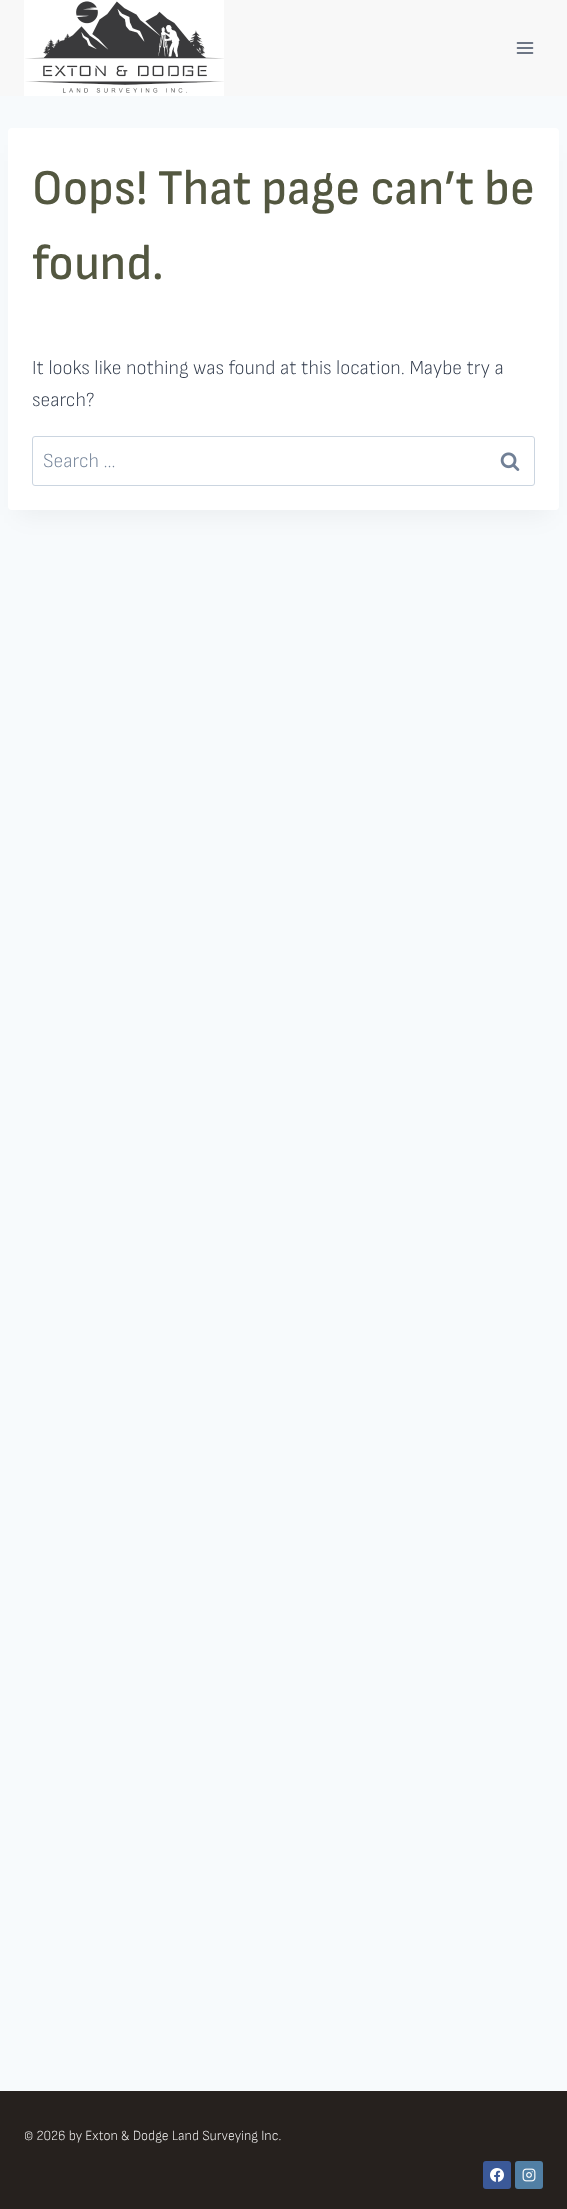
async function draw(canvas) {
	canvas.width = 567;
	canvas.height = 2209;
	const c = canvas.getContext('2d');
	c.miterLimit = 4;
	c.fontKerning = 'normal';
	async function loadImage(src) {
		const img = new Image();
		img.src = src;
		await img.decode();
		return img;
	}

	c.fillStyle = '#f7fafc';
	c.fillRect(0, 0, 567, 2209);
	c.fillStyle = '#f8f8f8';
	c.fillRect(0, 0, 567, 96);
	c.drawImage(await loadImage('img1.png'), 24, 0, 200, 96);
	c.drawImage(await loadImage('img2.png'), 516, 42, 18, 12);
	c.fillStyle = '#0000000d';
	c.filter = 'blur(12.5px)';
	c.beginPath();
	c.rect(18, 153, 531, 362);
	c.fill();
	c.filter = 'none';
	c.fillStyle = '#fff';
	c.beginPath();
	c.roundRect(8, 128, 551, 382, 4);
	c.fill();
	c.font = '500 50px Sofia Sans Semi Condensed';
	c.fillStyle = '#535740';
	c.fillText('Oops! That page can’t be', 32, 204);
	c.fillText('found.', 32, 279);
	c.font = '300 20px Sofia Sans Semi Condensed';
	c.fillStyle = '#2d3748';
	c.fillText('It looks like nothing was found at this location. Maybe try a', 32, 374);
	c.fillText('search?', 32, 406);
	c.beginPath();
	c.roundRect(32.5, 436.5, 502, 49, 2.5);
	c.strokeStyle = '#cbd5e0';
	c.stroke();
	c.fillStyle = '#718096';
	c.fillText('Search …', 43, 467);
	c.drawImage(await loadImage('img3.png'), 500, 452, 20, 19);
	c.fillStyle = '#26211e';
	c.fillRect(0, 2091, 567, 118);
	c.font = '300 14px Sofia Sans Semi Condensed';
	c.fillStyle = '#fff';
	c.fillText('© 2026 by Exton & Dodge Land Surveying Inc.', 24, 2140);
	c.fillStyle = '#3b5998';
	c.beginPath();
	c.roundRect(483, 2161, 28, 28, 3);
	c.fill();
	c.drawImage(await loadImage('img4.png'), 490, 2168, 14, 14);
	c.fillStyle = '#517fa4';
	c.beginPath();
	c.roundRect(515, 2161, 28, 28, 3);
	c.fill();
	c.drawImage(await loadImage('img5.png'), 522, 2168, 14, 14);
}

draw(document.querySelector('canvas'));
